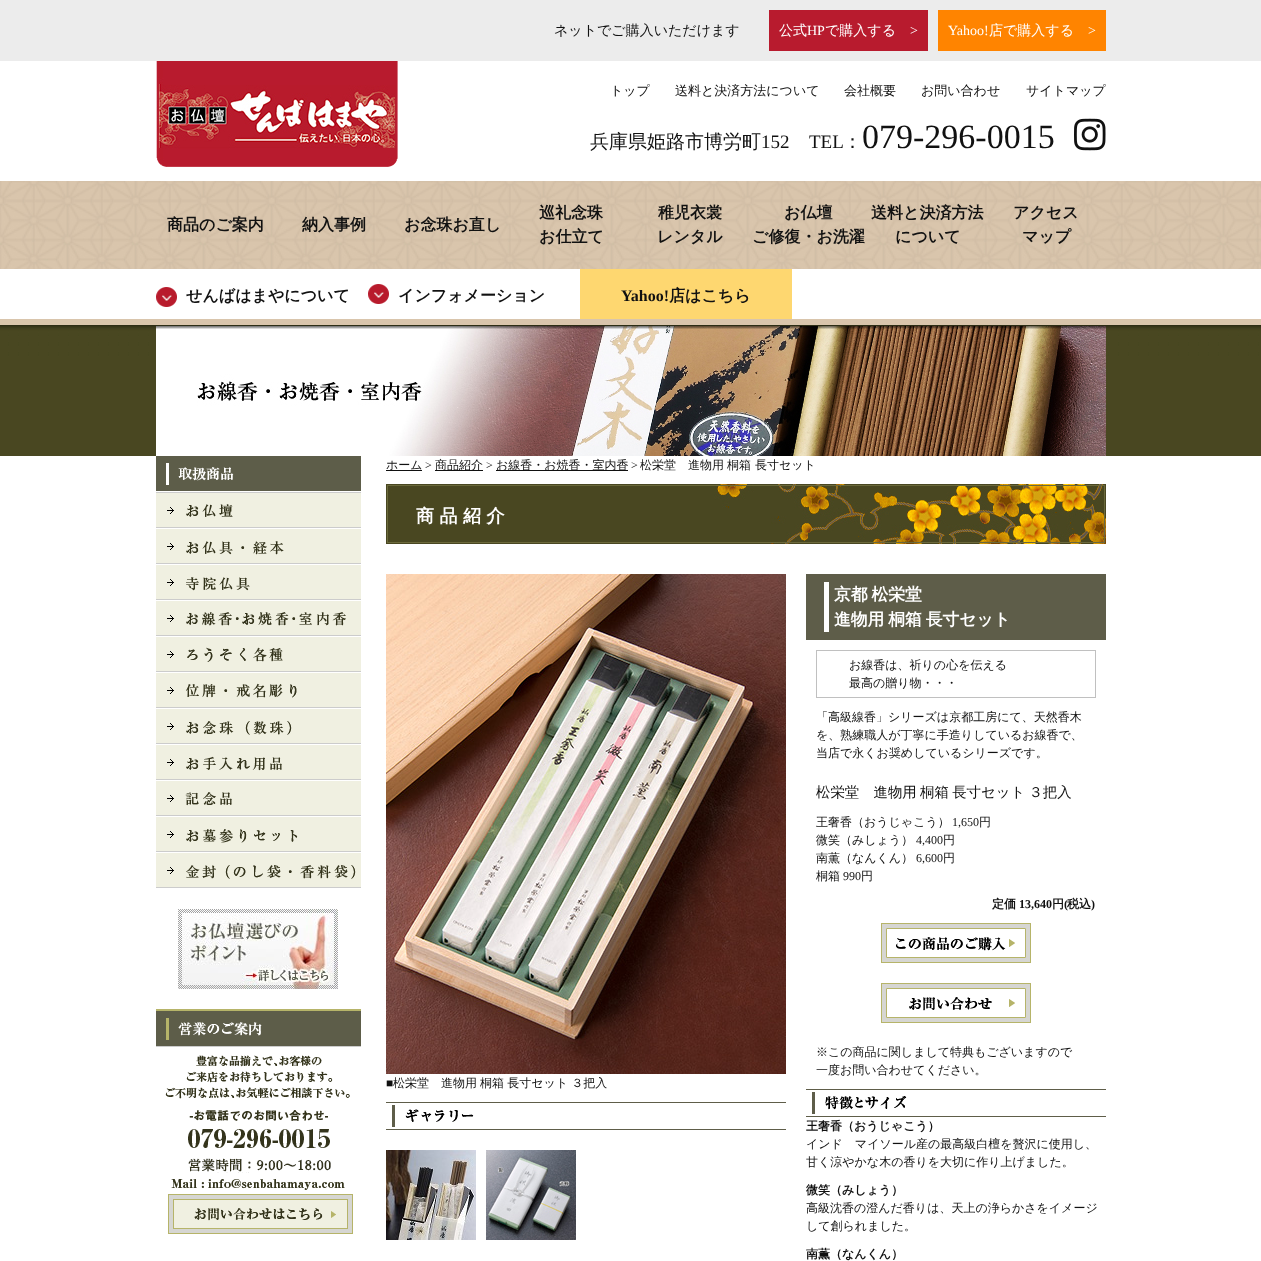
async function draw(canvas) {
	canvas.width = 1261;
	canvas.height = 1261;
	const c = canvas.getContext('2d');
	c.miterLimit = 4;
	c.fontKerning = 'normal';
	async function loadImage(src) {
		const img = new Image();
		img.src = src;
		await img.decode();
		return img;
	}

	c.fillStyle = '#fff';
	c.fillRect(0, 0, 1261, 1261);
	c.fillStyle = '#ececec';
	c.fillRect(0, 0, 1261, 61);
	c.font = '500 14px WenQuanYi Zen Hei';
	c.fillStyle = '#111';
	c.fillText('ネットでご購入いただけます', 554, 35);
	c.fillStyle = '#b81b2e';
	c.fillRect(769, 10, 159, 41);
	c.fillStyle = '#fff';
	c.fillText('公式', 779, 35);
	c.font = '14px Liberation Serif';
	c.fillText('HP', 807, 35);
	c.font = '500 14px WenQuanYi Zen Hei';
	c.fillText('で購入する', 825, 35);
	c.font = '14px Liberation Serif';
	c.fillText('>', 910, 35);
	c.fillStyle = '#ff8400';
	c.fillRect(938, 10, 168, 41);
	c.fillStyle = '#fff';
	c.fillText('Yahoo!', 948, 35);
	c.font = '500 14px WenQuanYi Zen Hei';
	c.fillText('店で購入する', 989, 35);
	c.font = '14px Liberation Serif';
	c.fillText('>', 1088, 35);
	c.font = '500 13px WenQuanYi Zen Hei';
	c.fillStyle = '#111';
	for (const [text, x, y] of [
		['トップ', 610, 95],
		['送料と決済方法について', 675, 95],
		['会社概要', 844, 95],
		['お問い合わせ', 921, 95],
		['サイトマップ', 1026, 95],
	]) {
		c.fillText(text, x, y);
	}
	c.drawImage(await loadImage('img1.png'), 156, 61, 242, 106);
	c.font = '500 19px WenQuanYi Zen Hei';
	c.fillText('兵庫県姫路市博労町', 590, 148);
	c.font = '19px Liberation Serif';
	c.fillText('152', 761, 148);
	c.fillText('TEL', 809, 148);
	c.font = '500 19px WenQuanYi Zen Hei';
	c.fillText('：', 843, 148);
	c.font = '34px Liberation Serif';
	c.fillText('079-296-0015', 862, 148);
	c.drawImage(await loadImage('img2.png'), 1074, 118, 32, 33);
	c.drawImage(await loadImage('img3.png'), 0, 181, 1261, 88);
	c.font = 'bold 16px WenQuanYi Zen Hei';
	for (const [text, x, y] of [
		['商品のご案内', 167, 230],
		['納入事例', 302, 230],
		['お念珠お直し', 404, 230],
		['巡礼念珠', 539, 218],
		['お仕立て', 539, 242],
		['稚児衣裳', 658, 218],
		['レンタル', 657, 242],
		['お仏壇', 784, 218],
		['ご修復・お洗濯', 752, 242],
		['送料と決済方法', 871, 218],
		['について', 895, 242],
		['アクセス', 1013, 218],
		['マップ', 1022, 242],
	]) {
		c.fillText(text, x, y);
	}
	c.fillStyle = '#d9c5ac';
	c.fillRect(0, 319, 1261, 6);
	c.drawImage(await loadImage('img4.png'), 156, 287, 21, 20);
	c.fillStyle = '#111';
	c.fillText('せんばはまやについて', 186, 301);
	c.drawImage(await loadImage('img4.png'), 368, 284, 21, 20);
	c.fillText('インフォメーション', 398, 301);
	c.fillStyle = '#fed770';
	c.fillRect(580, 269, 212, 50);
	c.font = 'bold 16px Liberation Serif';
	c.fillStyle = '#111';
	c.fillText('Yahoo!', 621, 301);
	c.font = 'bold 16px WenQuanYi Zen Hei';
	c.fillText('店はこちら', 669, 301);
	c.drawImage(await loadImage('img5.png'), 0, 325, 1261, 131);
	c.drawImage(await loadImage('img6.png'), 156, 326, 950, 130);
	c.drawImage(await loadImage('img7.png'), 156, 456, 205, 35);
	c.fillStyle = '#ccc';
	c.fillRect(156, 492, 205, 1);
	c.drawImage(await loadImage('img8.png'), 156, 493, 205, 35);
	c.drawImage(await loadImage('img9.png'), 156, 529, 205, 35);
	c.drawImage(await loadImage('img10.png'), 156, 565, 205, 35);
	c.drawImage(await loadImage('img11.png'), 156, 601, 205, 35);
	c.drawImage(await loadImage('img12.png'), 156, 637, 205, 35);
	c.drawImage(await loadImage('img13.png'), 156, 673, 205, 35);
	c.drawImage(await loadImage('img14.png'), 156, 709, 205, 35);
	c.drawImage(await loadImage('img15.png'), 156, 745, 205, 35);
	c.drawImage(await loadImage('img16.png'), 156, 781, 205, 35);
	c.drawImage(await loadImage('img17.png'), 156, 817, 205, 35);
	c.drawImage(await loadImage('img18.png'), 156, 853, 205, 35);
	c.drawImage(await loadImage('img19.png'), 178, 909, 160, 80);
	c.drawImage(await loadImage('img20.png'), 156, 1009, 205, 38);
	c.drawImage(await loadImage('img21.png'), 165, 1055, 185, 135);
	c.drawImage(await loadImage('img22.png'), 168, 1194, 185, 40);
	c.fillStyle = '#111';
	c.fillRect(386, 470, 36, 1);
	c.font = '500 12px WenQuanYi Zen Hei';
	c.fillText('ホーム', 386, 469);
	c.font = '12px Liberation Serif';
	c.fillText('>', 425, 469);
	c.fillRect(435, 470, 48, 1);
	c.font = '500 12px WenQuanYi Zen Hei';
	c.fillText('商品紹介', 435, 469);
	c.font = '12px Liberation Serif';
	c.fillText('>', 486, 469);
	c.fillRect(496, 470, 132, 1);
	c.font = '500 12px WenQuanYi Zen Hei';
	c.fillText('お線香・お焼香・室内香', 496, 469);
	c.font = '12px Liberation Serif';
	c.fillText('>', 631, 469);
	c.wordSpacing = '-0.5px';
	c.font = '500 12px WenQuanYi Zen Hei';
	c.fillText('松栄堂　進物用 桐箱', 640, 469);
	c.wordSpacing = '0px';
	c.fillText('長寸セット', 755, 469);
	c.drawImage(await loadImage('img23.png'), 386, 484, 720, 60);
	c.letterSpacing = '5.5px';
	c.font = 'bold 18px WenQuanYi Zen Hei';
	c.fillStyle = '#fff';
	c.fillText('商品紹介', 416, 522);
	c.drawImage(await loadImage('img24.png'), 386, 574, 400, 500);
	c.letterSpacing = '0px';
	c.font = '12px Liberation Serif';
	c.fillStyle = '#111';
	c.fillText('■', 386, 1087);
	c.wordSpacing = '-0.5px';
	c.font = '500 12px WenQuanYi Zen Hei';
	c.fillText('松栄堂　進物用 桐箱 長寸セット ３把入', 393, 1087);
	c.drawImage(await loadImage('img25.png'), 386, 1102, 400, 28);
	c.drawImage(await loadImage('img26.png'), 386, 1150, 90, 90);
	c.drawImage(await loadImage('img27.png'), 486, 1150, 90, 90);
	c.fillStyle = '#5e5d49';
	c.fillRect(814, 582, 284, 50);
	c.fillStyle = '#fff';
	c.fillRect(824, 574, 5, 66);
	c.strokeStyle = '#5e5d49';
	c.lineWidth = 8;
	c.strokeRect(810, 578, 292, 58);
	c.wordSpacing = '-1px';
	c.font = 'bold 16.75px WenQuanYi Zen Hei';
	c.fillText('京都 松栄堂', 834, 600);
	c.fillText('進物用 桐箱 長寸セット', 834, 625);
	c.strokeStyle = '#c0c0c0';
	c.lineWidth = 1;
	c.strokeRect(816.5, 650.5, 279, 47);
	c.wordSpacing = '0px';
	c.font = '500 12px WenQuanYi Zen Hei';
	c.fillStyle = '#111';
	for (const [text, x, y] of [
		['お線香は、祈りの心を伝える', 849, 669],
		['最高の贈り物・・・', 849, 687],
		['「高級線香」シリーズは京都工房にて、天然香木', 816, 721],
		['を、熟練職人が丁寧に手造りしているお線香で、', 816, 739],
		['当店で永くお奨めしているシリーズです。', 816, 757],
	]) {
		c.fillText(text, x, y);
	}
	c.wordSpacing = '-1px';
	c.font = '500 14.4px WenQuanYi Zen Hei';
	c.fillText('松栄堂　進物用 桐箱 長寸セット ３把入', 816, 797);
	c.wordSpacing = '0px';
	c.font = '500 12px WenQuanYi Zen Hei';
	c.fillText('王奢香（おうじゃこう）', 816, 826);
	c.font = '12px Liberation Serif';
	c.fillText('1,650', 952, 826);
	c.font = '500 12px WenQuanYi Zen Hei';
	c.fillText('円', 979, 826);
	c.fillText('微笑（みしょう）', 816, 844);
	c.font = '12px Liberation Serif';
	c.fillText('4,400', 916, 844);
	c.font = '500 12px WenQuanYi Zen Hei';
	c.fillText('円', 943, 844);
	c.fillText('南薫（なんくん）', 816, 862);
	c.font = '12px Liberation Serif';
	c.fillText('6,600', 916, 862);
	c.font = '500 12px WenQuanYi Zen Hei';
	c.fillText('円', 943, 862);
	c.fillText('桐箱', 816, 880);
	c.font = '12px Liberation Serif';
	c.fillText('990', 843, 880);
	c.font = '500 12px WenQuanYi Zen Hei';
	c.fillText('円', 861, 880);
	c.font = 'bold 12px WenQuanYi Zen Hei';
	c.fillText('定価', 992, 908);
	c.font = 'bold 12px Liberation Serif';
	c.fillText('13,640', 1019, 908);
	c.font = 'bold 12px WenQuanYi Zen Hei';
	c.fillText('円', 1052, 908);
	c.font = 'bold 12px Liberation Serif';
	c.fillText('(', 1064, 908);
	c.font = 'bold 12px WenQuanYi Zen Hei';
	c.fillText('税込', 1067, 908);
	c.font = 'bold 12px Liberation Serif';
	c.fillText(')', 1091, 908);
	c.drawImage(await loadImage('img28.png'), 881, 923, 150, 40);
	c.drawImage(await loadImage('img29.png'), 881, 983, 150, 40);
	c.font = '500 12px WenQuanYi Zen Hei';
	c.fillText('※この商品に関しまして特典もございますので', 816, 1056);
	c.fillText('一度お問い合わせてください。', 816, 1074);
	c.drawImage(await loadImage('img30.png'), 806, 1089, 300, 28);
	c.font = 'bold 12px WenQuanYi Zen Hei';
	c.fillText('王奢香（おうじゃこう）', 806, 1130);
	c.font = '500 12px WenQuanYi Zen Hei';
	c.fillText('インド　マイソール産の最高級白檀を贅沢に使用し、', 806, 1148);
	c.fillText('甘く涼やかな木の香りを大切に作り上げました。', 806, 1166);
	c.font = 'bold 12px WenQuanYi Zen Hei';
	c.fillText('微笑（みしょう）', 806, 1194);
	c.font = '500 12px WenQuanYi Zen Hei';
	c.fillText('高級沈香の澄んだ香りは、天上の浄らかさをイメージ', 806, 1212);
	c.fillText('して創られました。', 806, 1230);
	c.font = 'bold 12px WenQuanYi Zen Hei';
	c.fillText('南薫（なんくん）', 806, 1258);
}

draw(document.querySelector('canvas'));
